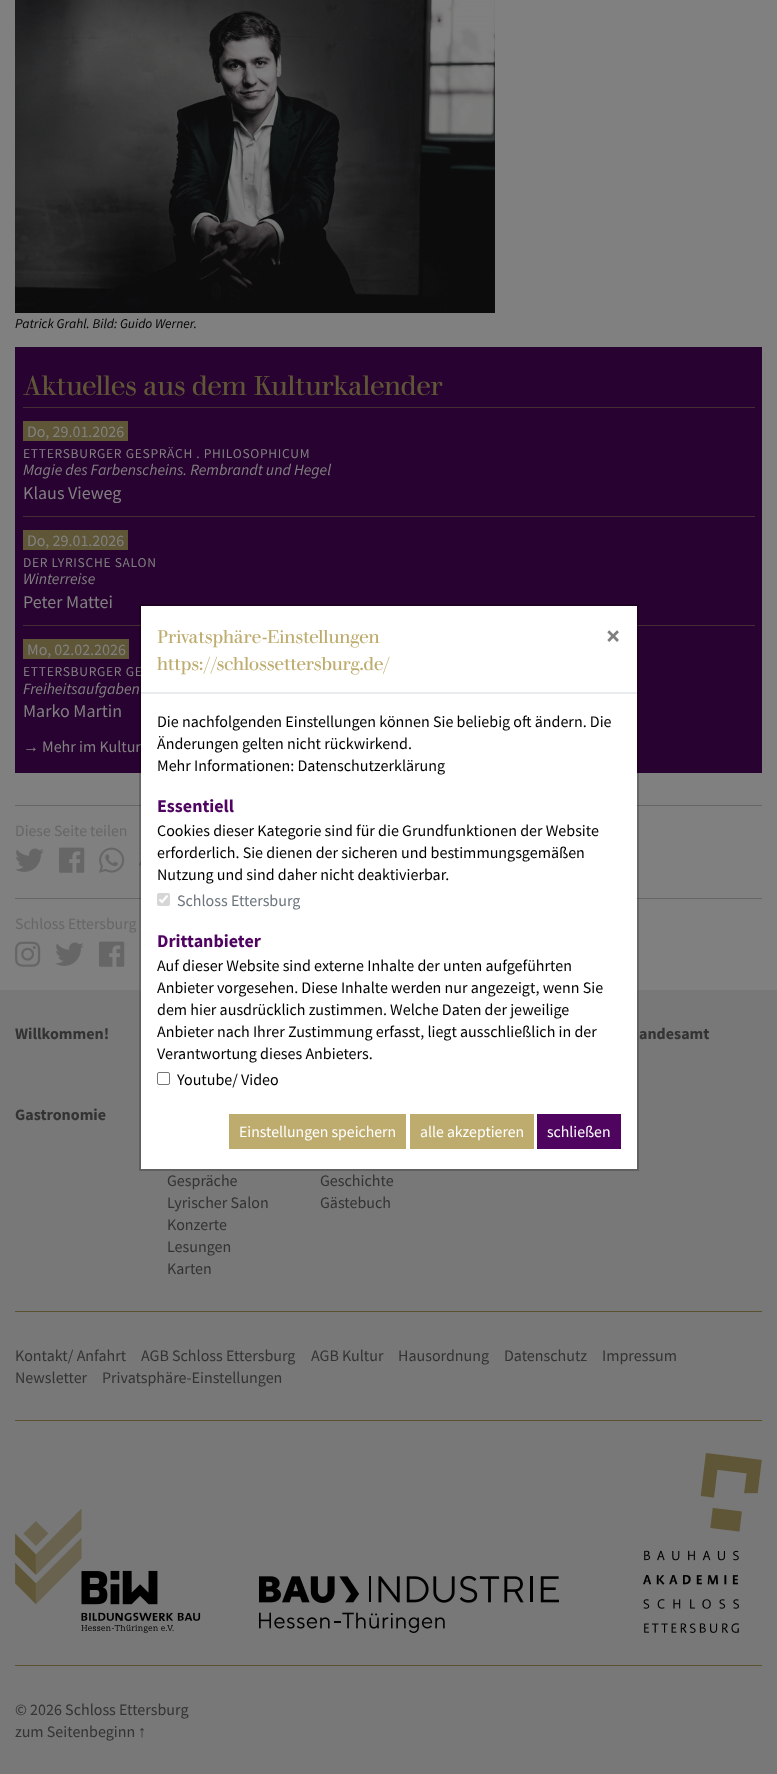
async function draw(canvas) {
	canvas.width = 777;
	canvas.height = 1774;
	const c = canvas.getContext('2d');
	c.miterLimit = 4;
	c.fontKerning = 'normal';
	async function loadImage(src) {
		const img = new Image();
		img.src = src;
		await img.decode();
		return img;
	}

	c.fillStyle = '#787878';
	c.fillRect(0, 0, 777, 1774);
	c.fillStyle = '#808080';
	c.fillRect(0, 0, 777, 990);
	c.drawImage(await loadImage('img1.png'), 15, 0, 480, 313);
	c.font = 'italic 13.5px Source Sans Pro';
	c.fillStyle = '#000';
	c.fillText('Patrick Grahl. Bild: Guido Werner.', 15, 328);
	c.fillStyle = '#280230';
	c.fillRect(15, 347, 747, 426);
	c.font = '27px "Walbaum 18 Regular"';
	c.fillStyle = '#5f5637';
	c.fillText('Aktuelles aus dem Kulturkalender', 23, 395);
	c.fillStyle = '#442d34';
	c.fillRect(23, 407, 732, 1);
	c.fillStyle = '#5f5637';
	c.fillRect(23, 421, 105, 20);
	c.font = '16px Source Sans Pro';
	c.fillStyle = '#808080';
	c.fillText('Do, 29.01.2026', 27, 437);
	c.letterSpacing = '0.7px';
	c.font = '13.5px Source Sans Pro';
	c.fillText('ETTERSBURGER GESPRÄCH . PHILOSOPHICUM', 23, 458);
	c.letterSpacing = '0px';
	c.font = 'italic 15.75px Source Sans Pro';
	c.fillText('Magie des Farbenscheins. Rembrandt und Hegel', 23, 475);
	c.font = '18px Source Sans Pro';
	c.fillText('Klaus Vieweg', 23, 499);
	c.fillStyle = '#442d34';
	c.fillRect(23, 516, 732, 1);
	c.fillStyle = '#5f5637';
	c.fillRect(23, 530, 105, 20);
	c.font = '16px Source Sans Pro';
	c.fillStyle = '#808080';
	c.fillText('Do, 29.01.2026', 27, 546);
	c.letterSpacing = '0.7px';
	c.font = '13.5px Source Sans Pro';
	c.fillText('DER LYRISCHE SALON', 23, 567);
	c.letterSpacing = '0px';
	c.font = 'italic 15.75px Source Sans Pro';
	c.fillText('Winterreise', 23, 584);
	c.font = '18px Source Sans Pro';
	c.fillText('Peter Mattei', 23, 608);
	c.fillStyle = '#442d34';
	c.fillRect(23, 625, 732, 1);
	c.fillStyle = '#5f5637';
	c.fillRect(23, 639, 106, 20);
	c.font = '16px Source Sans Pro';
	c.fillStyle = '#808080';
	c.fillText('Mo, 02.02.2026', 27, 655);
	c.letterSpacing = '0.7px';
	c.font = '13.5px Source Sans Pro';
	c.fillText('ETTERSBURGER GE', 23, 676);
	c.letterSpacing = '0px';
	c.font = 'italic 15.75px Source Sans Pro';
	c.fillText('Freiheitsaufgaben', 23, 694);
	c.font = '18px Source Sans Pro';
	c.fillText('Marko Martin', 23, 717);
	c.font = '16px Liberation Sans';
	c.fillText('→', 23, 752);
	c.font = '16px Source Sans Pro';
	c.fillText('Mehr im Kultur', 42, 752);
	c.fillStyle = '#666';
	c.fillRect(15, 805, 747, 1);
	c.font = '15.75px Source Sans Pro';
	c.fillText('Diese Seite teilen', 15, 836);
	c.drawImage(await loadImage('img2.png'), 15, 848, 29, 24);
	c.drawImage(await loadImage('img3.png'), 59, 847, 26, 26);
	c.drawImage(await loadImage('img4.png'), 99, 847, 26, 26);
	c.drawImage(await loadImage('img5.png'), 139, 852, 2, 14);
	c.fillRect(15, 898, 747, 1);
	c.fillText('Schloss Ettersburg', 15, 929);
	c.drawImage(await loadImage('img6.png'), 15, 941, 26, 26);
	c.drawImage(await loadImage('img2.png'), 55, 942, 29, 24);
	c.drawImage(await loadImage('img3.png'), 99, 941, 26, 26);
	c.fillStyle = '#fff';
	c.fillRect(141, 606, 496, 563);
	c.strokeStyle = '#00000033';
	c.lineWidth = 2;
	c.strokeRect(140, 605, 498, 565);
	c.fillStyle = '#e9ecef';
	c.fillRect(141, 692, 496, 2);
	c.font = '18px "Walbaum 18 Regular"';
	c.fillStyle = '#beac6e';
	c.fillText('Privatsphäre-Einstellungen', 157, 643);
	c.fillText('https://schlossettersburg.de/', 157, 670);
	c.font = 'bold 27px Source Sans Pro';
	c.fillStyle = '#808080';
	c.fillText('×', 606, 645);
	c.font = '16px Source Sans Pro';
	c.fillStyle = '#000';
	for (const [text, x, y] of [
		['Die nachfolgenden Einstellungen können Sie beliebig oft ändern. Die', 157, 727],
		['Änderungen gelten nicht rückwirkend.', 157, 749],
		['Mehr Informationen: Datenschutzerklärung', 157, 771],
	]) {
		c.fillText(text, x, y);
	}
	c.font = 'bold 18px Source Sans Pro';
	c.fillStyle = '#4f0460';
	c.fillText('Essentiell', 157, 812);
	c.font = '16px Source Sans Pro';
	c.fillStyle = '#000';
	for (const [text, x, y] of [
		['Cookies dieser Kategorie sind für die Grundfunktionen der Website', 157, 836],
		['erforderlich. Sie dienen der sicheren und bestimmungsgemäßen', 157, 858],
		['Nutzung und sind daher nicht deaktivierbar.', 157, 880],
	]) {
		c.fillText(text, x, y);
	}
	c.fillStyle = '#d6d6d6';
	c.beginPath();
	c.roundRect(157, 893, 13, 13, 2);
	c.fill();
	c.beginPath();
	c.moveTo(159.5, 899.5);
	c.lineTo(162, 902);
	c.lineTo(167.5, 895.5);
	c.strokeStyle = '#fff';
	c.lineWidth = 2.1;
	c.stroke();
	c.fillStyle = '#6c757d';
	c.fillText('Schloss Ettersburg', 177, 906);
	c.font = 'bold 18px Source Sans Pro';
	c.fillStyle = '#4f0460';
	c.fillText('Drittanbieter', 157, 947);
	c.font = '16px Source Sans Pro';
	c.fillStyle = '#000';
	for (const [text, x, y] of [
		['Auf dieser Website sind externe Inhalte der unten aufgeführten', 157, 971],
		['Anbieter vorgesehen. Diese Inhalte werden nur angezeigt, wenn Sie', 157, 993],
		['dem hier ausdrücklich zustimmen. Welche Daten der jeweilige', 157, 1015],
		['Anbieter nach Ihrer Zustimmung erfasst, liegt ausschließlich in der', 157, 1037],
		['Verantwortung dieses Anbieters.', 157, 1059],
	]) {
		c.fillText(text, x, y);
	}
	c.beginPath();
	c.roundRect(157.5, 1072.5, 12, 12, 1.5);
	c.strokeStyle = '#767676';
	c.lineWidth = 1;
	c.stroke();
	c.fillText('Youtube/ Video', 177, 1085);
	c.fillStyle = '#beac6e';
	c.fillRect(229, 1114, 177, 35);
	c.font = '15.75px Source Sans Pro';
	c.fillStyle = '#fff';
	c.fillText('Einstellungen speichern', 239, 1137);
	c.fillStyle = '#beac6e';
	c.fillRect(410, 1114, 124, 35);
	c.fillStyle = '#fff';
	c.fillText('alle akzeptieren', 420, 1137);
	c.fillStyle = '#4f0460';
	c.fillRect(537, 1114, 84, 35);
	c.fillStyle = '#fff';
	c.fillText('schließen', 547, 1137);
	c.font = 'bold 16px Source Sans Pro';
	c.fillStyle = '#333';
	for (const [text, x, y] of [
		['Willkommen!', 15, 1039],
		['andesamt', 639, 1039],
		['Gastronomie', 15, 1120],
	]) {
		c.fillText(text, x, y);
	}
	c.font = '16px Source Sans Pro';
	for (const [text, x, y] of [
		['Gespräche', 167, 1186],
		['Lyrischer Salon', 167, 1208],
		['Konzerte', 167, 1230],
		['Lesungen', 167, 1252],
		['Karten', 167, 1274],
		['Geschichte', 320, 1186],
		['Gästebuch', 320, 1208],
	]) {
		c.fillText(text, x, y);
	}
	c.fillStyle = '#5b512e';
	c.fillRect(15, 1311, 747, 1);
	c.fillStyle = '#333';
	for (const [text, x, y] of [
		['Kontakt/ Anfahrt', 15, 1361],
		['AGB Schloss Ettersburg', 141, 1361],
		['AGB Kultur', 311, 1361],
		['Hausordnung', 398, 1361],
		['Datenschutz', 504, 1361],
		['Impressum', 602, 1361],
		['Newsletter', 15, 1383],
		['Privatsphäre-Einstellungen', 102, 1383],
	]) {
		c.fillText(text, x, y);
	}
	c.fillStyle = '#5b512e';
	c.fillRect(15, 1420, 747, 1);
	c.drawImage(await loadImage('img7.png'), 15, 1508, 186, 125);
	c.drawImage(await loadImage('img8.png'), 259, 1575, 300, 58);
	c.drawImage(await loadImage('img9.png'), 643, 1453, 119, 180);
	c.fillRect(15, 1665, 747, 1);
	c.fillStyle = '#333';
	c.fillText('© 2026 Schloss Ettersburg', 15, 1715);
	c.fillText('zum Seitenbeginn', 15, 1737);
	c.font = '16px Liberation Sans';
	c.fillText('↑', 138, 1737);
}

draw(document.querySelector('canvas'));
